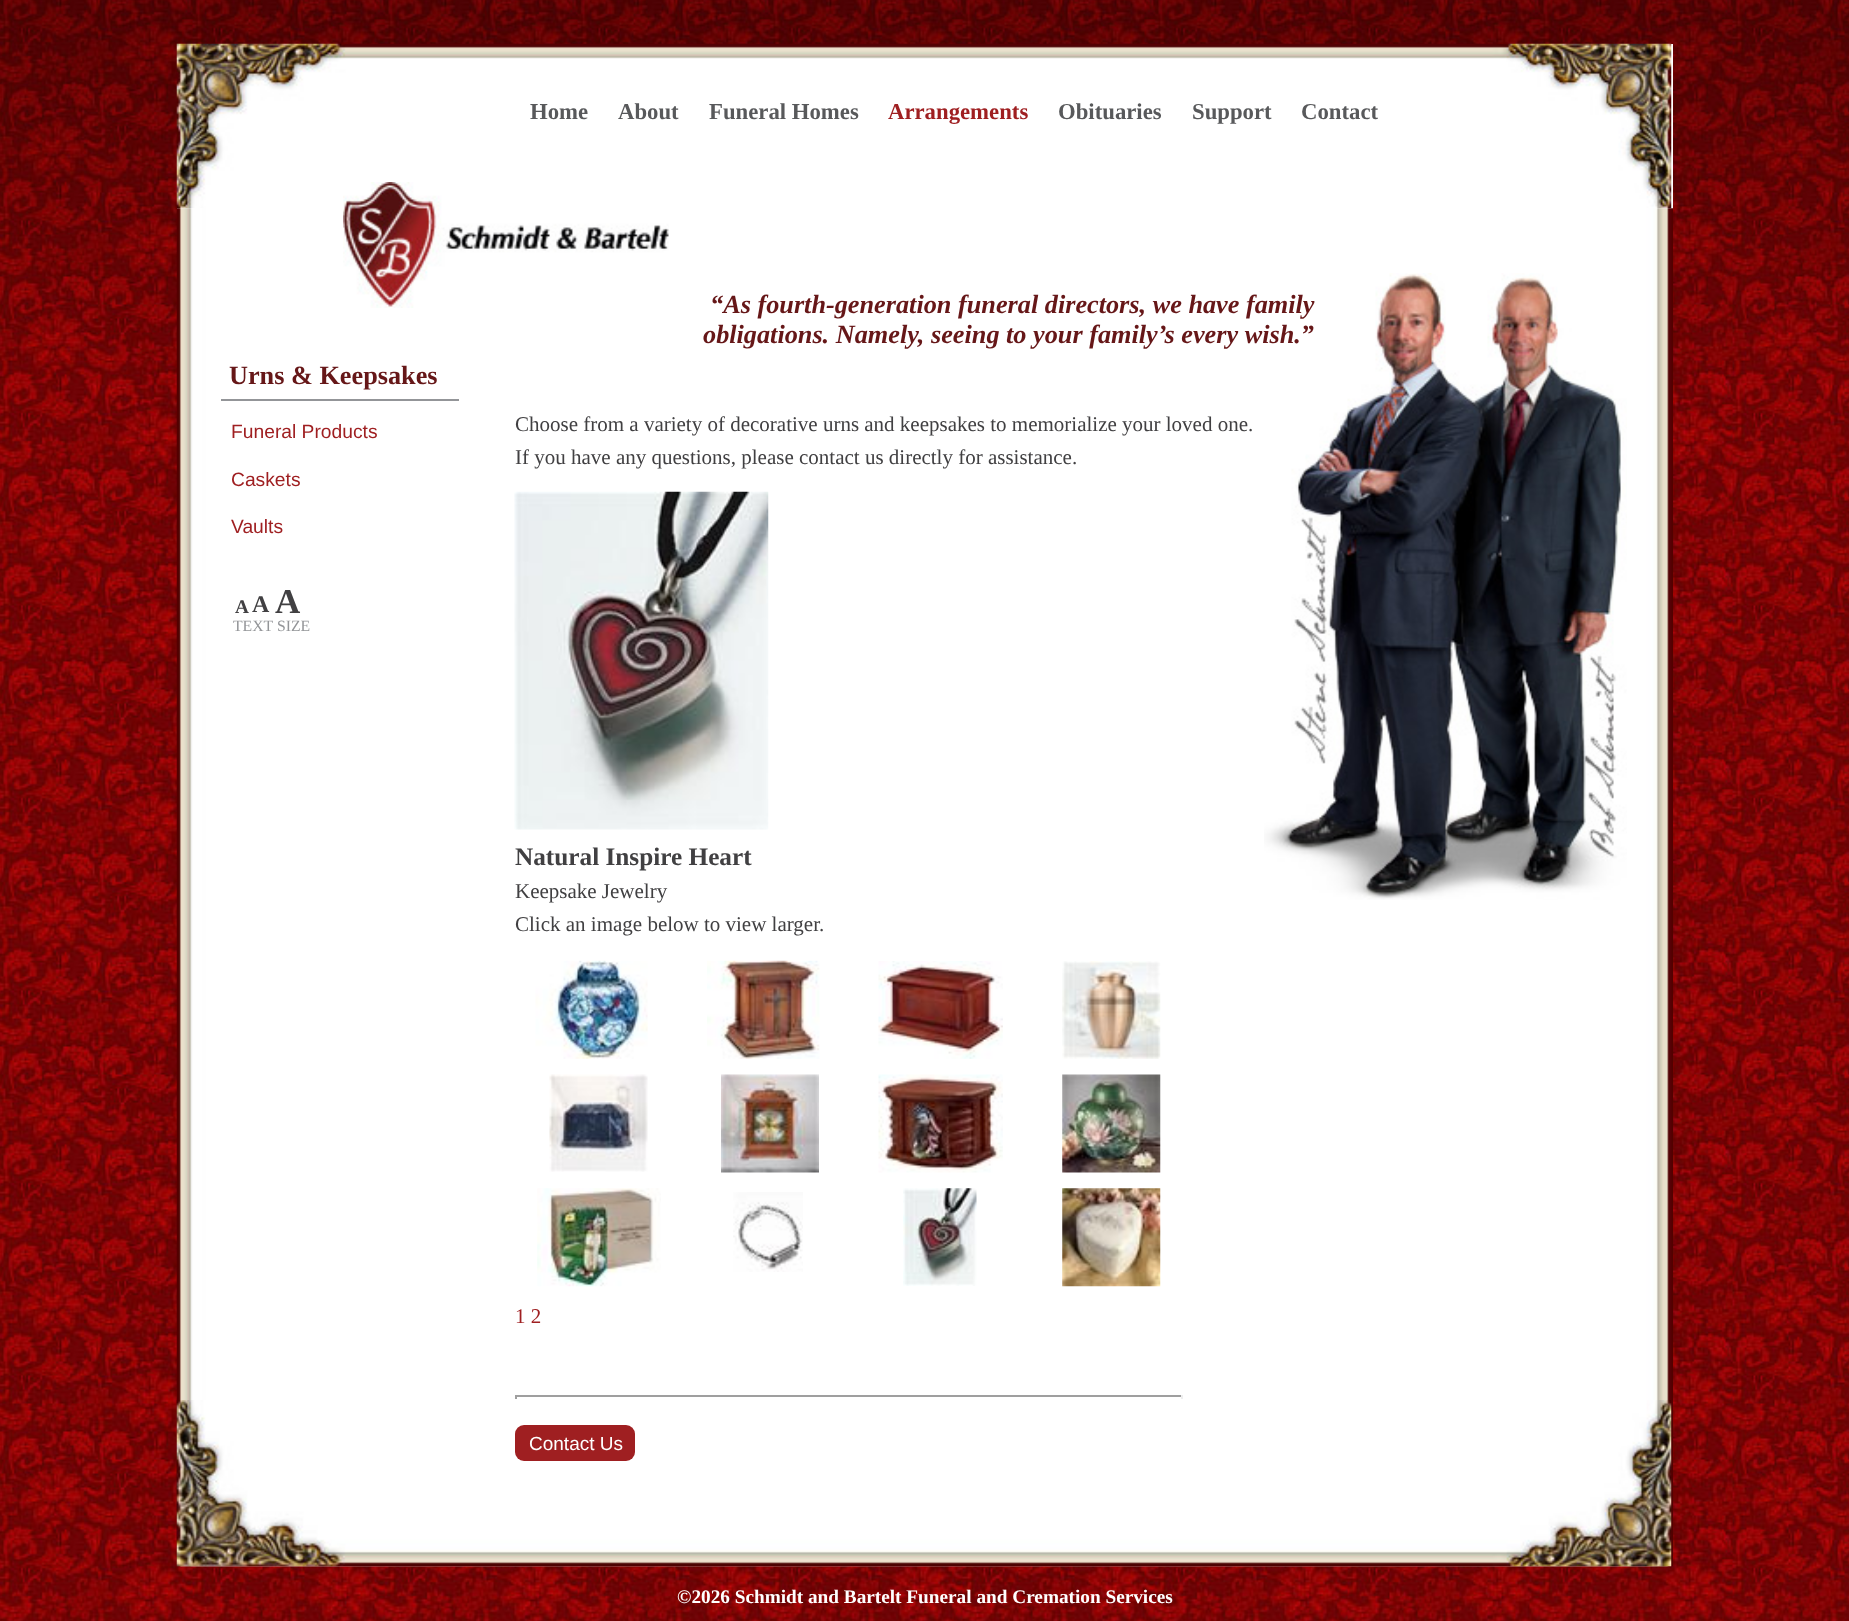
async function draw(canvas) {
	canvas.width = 1849;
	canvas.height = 1621;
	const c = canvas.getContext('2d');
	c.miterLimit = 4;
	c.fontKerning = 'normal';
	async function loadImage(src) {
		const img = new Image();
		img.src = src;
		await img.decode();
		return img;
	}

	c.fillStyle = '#fff';
	c.fillRect(0, 0, 1849, 1621);
	c.drawImage(await loadImage('img1.png'), 0, 0, 1849, 1621);
	c.fillRect(177, 44, 1496, 165);
	c.drawImage(await loadImage('img2.png'), 176, 43, 1496, 166);
	c.font = 'bold 22.75px Liberation Serif';
	c.fillStyle = '#58595b';
	for (const [text, x, y] of [
		['Home', 530, 119],
		['About', 618, 119],
		['Funeral Homes', 709, 119],
	]) {
		c.fillText(text, x, y);
	}
	c.fillStyle = '#9f1f21';
	c.fillText('Arrangements', 888, 119);
	c.fillStyle = '#58595b';
	for (const [text, x, y] of [
		['Obituaries', 1058, 119],
		['Support', 1192, 119],
		['Contact', 1301, 119],
	]) {
		c.fillText(text, x, y);
	}
	c.drawImage(await loadImage('img4.png'), 176, 208, 1497, 1359);
	c.drawImage(await loadImage('img3.png'), 343, 182, 326, 126);
	c.drawImage(await loadImage('img5.png'), 176, 1400, 1496, 167);
	c.drawImage(await loadImage('img6.png'), 1264, 273, 363, 627);
	c.font = 'italic bold 26.25px Liberation Serif';
	c.fillStyle = '#661718';
	c.fillText('“As fourth-generation funeral directors, we have family', 710, 313);
	c.fillText('obligations. Namely, seeing to your family’s every wish.”', 703, 343);
	c.fillStyle = '#939598';
	c.fillRect(221, 399, 238, 2);
	c.font = 'bold 26.25px Liberation Serif';
	c.fillStyle = '#661718';
	c.fillText('Urns & Keepsakes', 229, 384);
	c.font = '19.25px Liberation Sans';
	c.fillStyle = '#9f1f21';
	for (const [text, x, y] of [
		['Funeral Products', 231, 438],
		['Caskets', 231, 486],
		['Vaults', 231, 533],
	]) {
		c.fillText(text, x, y);
	}
	c.font = 'bold 19.25px Liberation Serif';
	c.fillStyle = '#414042';
	c.fillText('A', 235, 613);
	c.font = 'bold 24px Liberation Serif';
	c.fillText('A', 252, 612);
	c.font = 'bold 35px Liberation Serif';
	c.fillText('A', 275, 613);
	c.font = '15.75px Liberation Serif';
	c.fillStyle = '#939598';
	c.fillText('TEXT SIZE', 233, 631);
	c.font = '21px Liberation Serif';
	c.fillStyle = '#414042';
	c.fillText('Choose from a variety of decorative urns and keepsakes to memorialize your loved one.', 515, 431);
	c.fillText('If you have any questions, please contact us directly for assistance.', 515, 464);
	c.drawImage(await loadImage('img7.png'), 514, 491, 255, 339);
	c.font = 'bold 25.25px Liberation Serif';
	c.fillText('Natural Inspire Heart', 515, 865);
	c.font = '21px Liberation Serif';
	c.fillText('Keepsake Jewelry', 515, 898);
	c.fillText('Click an image below to view larger.', 515, 931);
	c.drawImage(await loadImage('img8.png'), 535, 960, 113, 99);
	c.drawImage(await loadImage('img9.png'), 707, 960, 113, 99);
	c.drawImage(await loadImage('img10.png'), 878, 961, 125, 98);
	c.drawImage(await loadImage('img11.png'), 1062, 961, 99, 98);
	c.drawImage(await loadImage('img12.png'), 549, 1074, 99, 98);
	c.drawImage(await loadImage('img13.png'), 721, 1074, 98, 99);
	c.drawImage(await loadImage('img14.png'), 878, 1074, 125, 99);
	c.drawImage(await loadImage('img15.png'), 1062, 1074, 99, 99);
	c.drawImage(await loadImage('img16.png'), 537, 1188, 124, 99);
	c.drawImage(await loadImage('img17.png'), 733, 1192, 70, 80);
	c.drawImage(await loadImage('img18.png'), 903, 1188, 74, 98);
	c.drawImage(await loadImage('img19.png'), 1062, 1188, 99, 99);
	c.fillStyle = '#9f1f21';
	c.fillText('1 2', 515, 1323);
	for (const [x, y, w, h, color] of [
		[515, 1395, 668, 2, '#9f9f9f'],
		[1181, 1395, 2, 4, '#eee'],
		[515, 1395, 2, 4, '#9f9f9f'],
	]) {
		c.fillStyle = color;
		c.fillRect(x, y, w, h);
	}
	c.fillStyle = '#9f1f21';
	c.beginPath();
	c.roundRect(515, 1425, 120, 36, 9);
	c.fill();
	c.font = '19px Liberation Sans';
	c.fillStyle = '#fff';
	c.fillText('Contact Us', 529, 1450);
	c.font = 'bold 19.25px Liberation Serif';
	c.fillText('©2026 Schmidt and Bartelt Funeral and Cremation Services', 677, 1603);
}

draw(document.querySelector('canvas'));
